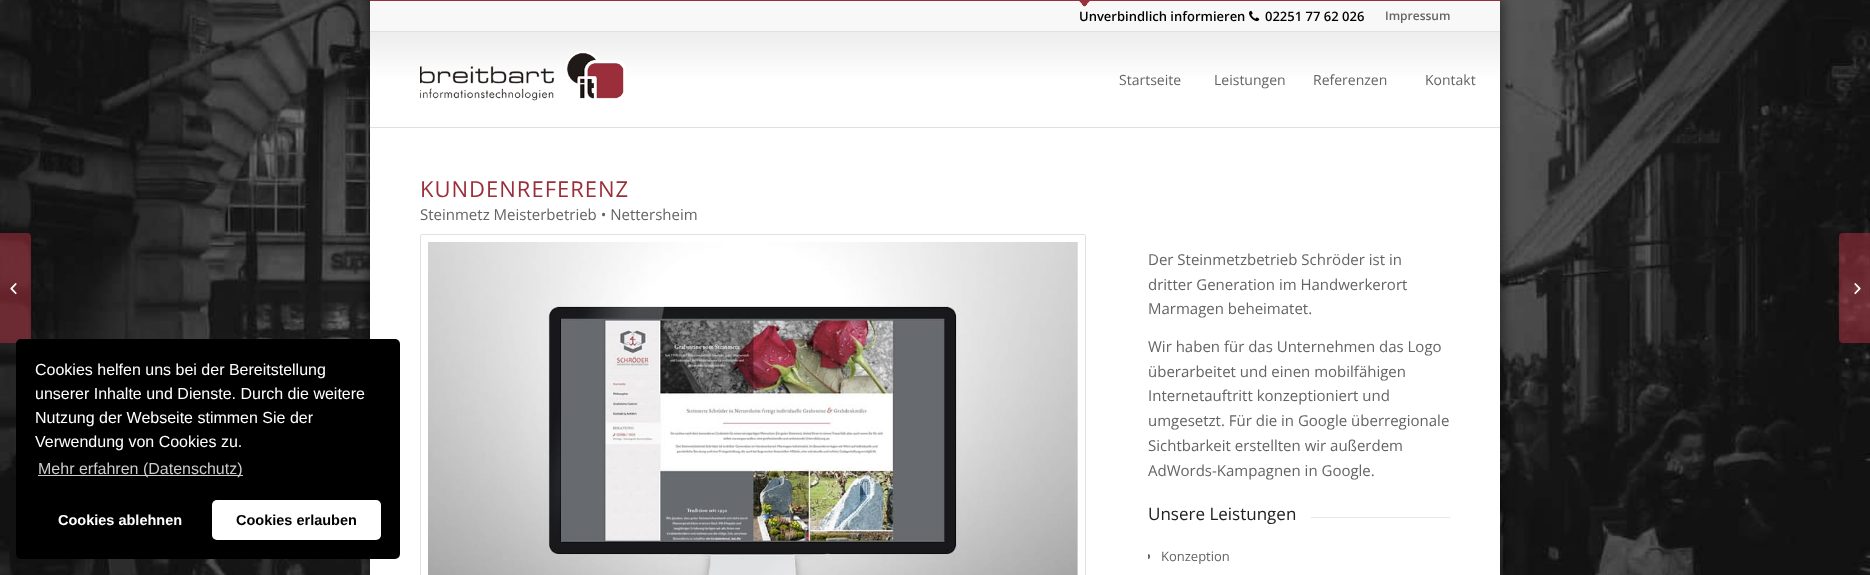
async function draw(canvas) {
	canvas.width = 1870;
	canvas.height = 575;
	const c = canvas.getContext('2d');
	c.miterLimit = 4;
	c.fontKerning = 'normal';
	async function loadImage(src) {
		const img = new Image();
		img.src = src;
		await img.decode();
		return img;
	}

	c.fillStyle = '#fff';
	c.fillRect(0, 0, 1870, 575);
	c.drawImage(await loadImage('img1.png'), 0, 0, 1870, 575);
	c.save();
	c.beginPath();
	c.moveTo(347, 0);
	c.lineTo(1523, 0);
	c.lineTo(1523, 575);
	c.lineTo(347, 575);
	c.closePath();
	c.moveTo(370, 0);
	c.lineTo(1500, 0);
	c.lineTo(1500, 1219);
	c.lineTo(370, 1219);
	c.closePath();
	c.clip('evenodd');
	c.fillStyle = '#0000008c';
	c.filter = 'blur(6.5px)';
	c.beginPath();
	c.rect(368, -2, 1134, 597);
	c.fill();
	c.filter = 'none';
	c.restore();
	c.fillStyle = '#9b2e3b99';
	c.beginPath();
	c.roundRect(0, 233, 31, 110, [0, 4, 4, 0]);
	c.fill();
	c.fillStyle = '#fff';
	c.fillRect(370, 126, 1130, 449);
	c.fillStyle = '#000';
	c.beginPath();
	c.roundRect(16, 339, 384, 220, 5);
	c.fill();
	c.font = '16px Liberation Sans';
	c.fillStyle = '#fff';
	for (const [text, x, y] of [
		['Cookies helfen uns bei der Bereitstellung', 35, 375],
		['unserer Inhalte und Dienste. Durch die weitere', 35, 399],
		['Nutzung der Webseite stimmen Sie der', 35, 423],
		['Verwendung von Cookies zu.', 35, 447],
	]) {
		c.fillText(text, x, y);
	}
	c.fillStyle = '#ccc';
	c.fillRect(38, 475, 205, 1);
	c.fillText('Mehr erfahren (Datenschutz)', 38, 474);
	c.font = 'bold 14.5px Liberation Sans';
	c.fillStyle = '#fff';
	c.fillText('Cookies ablehnen', 58, 525);
	c.beginPath();
	c.roundRect(212, 500, 169, 40, 5);
	c.fill();
	c.fillStyle = '#000';
	c.fillText('Cookies erlauben', 236, 525);
	for (const [x, y, w, h, color] of [
		[370, 1, 1130, 30, '#f8f8f8'],
		[370, 0, 1130, 1, '#9b2e3b'],
		[370, 31, 1130, 1, '#e1e1e1'],
	]) {
		c.fillStyle = color;
		c.fillRect(x, y, w, h);
	}
	c.drawImage(await loadImage('img2.png'), 1079, 1, 11, 6);
	c.font = '600 13px Open Sans';
	c.fillStyle = '#000';
	c.fillText('Unverbindlich informieren', 1079, 21);
	c.drawImage(await loadImage('img3.png'), 1249, 10, 11, 12);
	c.fillText('02251 77 62 026', 1265, 21);
	c.font = '600 12px Open Sans';
	c.fillStyle = '#646464';
	c.fillText('Impressum', 1385, 20);
	c.fillStyle = '#e1e1e1';
	c.fillRect(370, 125, 1130, 1);
	c.fillStyle = '#fffffff2';
	c.fillRect(370, 32, 1130, 94);
	c.drawImage(await loadImage('img4.png'), 370, 32, 1130, 93);
	c.fillStyle = '#e1e1e1';
	c.fillRect(370, 127, 1130, 1);
	c.drawImage(await loadImage('img5.png'), 420, 51, 206, 50);
	c.font = '14px Open Sans';
	c.fillStyle = '#646464';
	for (const [text, x, y] of [
		['Startseite', 1119, 85],
		['Leistungen', 1214, 85],
		['Referenzen', 1313, 85],
		['Kontakt', 1425, 85],
	]) {
		c.fillText(text, x, y);
	}
	c.drawImage(await loadImage('img6.png'), 10, 283, 7, 12);
	c.letterSpacing = '1px';
	c.font = '22px Open Sans';
	c.fillStyle = '#9b2e3b';
	c.fillText('KUNDENREFERENZ', 420, 197);
	c.letterSpacing = '0px';
	c.font = '15px Open Sans';
	c.fillStyle = '#646464';
	c.fillText('Steinmetz Meisterbetrieb • Nettersheim', 420, 220);
	c.beginPath();
	c.moveTo(422, 234.5);
	c.lineTo(1084, 234.5);
	c.bezierCurveTo(1085, 234.5, 1085.5, 235, 1085.5, 236);
	c.lineTo(1085.5, 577.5);
	c.lineTo(420.5, 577.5);
	c.lineTo(420.5, 236);
	c.bezierCurveTo(420.5, 235, 421, 234.5, 422, 234.5);
	c.closePath();
	c.strokeStyle = '#e1e1e1';
	c.stroke();
	c.drawImage(await loadImage('img7.png'), 428, 242, 650, 333);
	for (const [text, x, y] of [
		['Der Steinmetzbetrieb Schröder ist in', 1148, 265],
		['dritter Generation im Handwerkerort', 1148, 290],
		['Marmagen beheimatet.', 1148, 314],
		['Wir haben für das Unternehmen das Logo', 1148, 352],
		['überarbeitet und einen mobilfähigen', 1148, 377],
		['Internetauftritt konzeptioniert und', 1148, 401],
		['umgesetzt. Für die in Google überregionale', 1148, 426],
		['Sichtbarkeit erstellten wir außerdem', 1148, 451],
		['AdWords-Kampagnen in Google.', 1148, 476],
	]) {
		c.fillText(text, x, y);
	}
	c.font = '17px Open Sans';
	c.fillStyle = '#202020';
	c.fillText('Unsere Leistungen', 1148, 520);
	c.fillStyle = '#e8e8e8';
	c.fillRect(1311, 517, 139, 1);
	c.fillStyle = '#646464';
	c.beginPath();
	c.roundRect(1148, 554, 2, 5, [0, 2.5, 2.5, 0]);
	c.fill();
	c.font = '13px Open Sans';
	c.fillText('Konzeption', 1161, 561);
	c.fillStyle = '#9b2e3b99';
	c.beginPath();
	c.roundRect(1839, 233, 31, 110, [4, 0, 0, 4]);
	c.fill();
	c.drawImage(await loadImage('img8.png'), 1854, 283, 7, 12);
}

draw(document.querySelector('canvas'));
